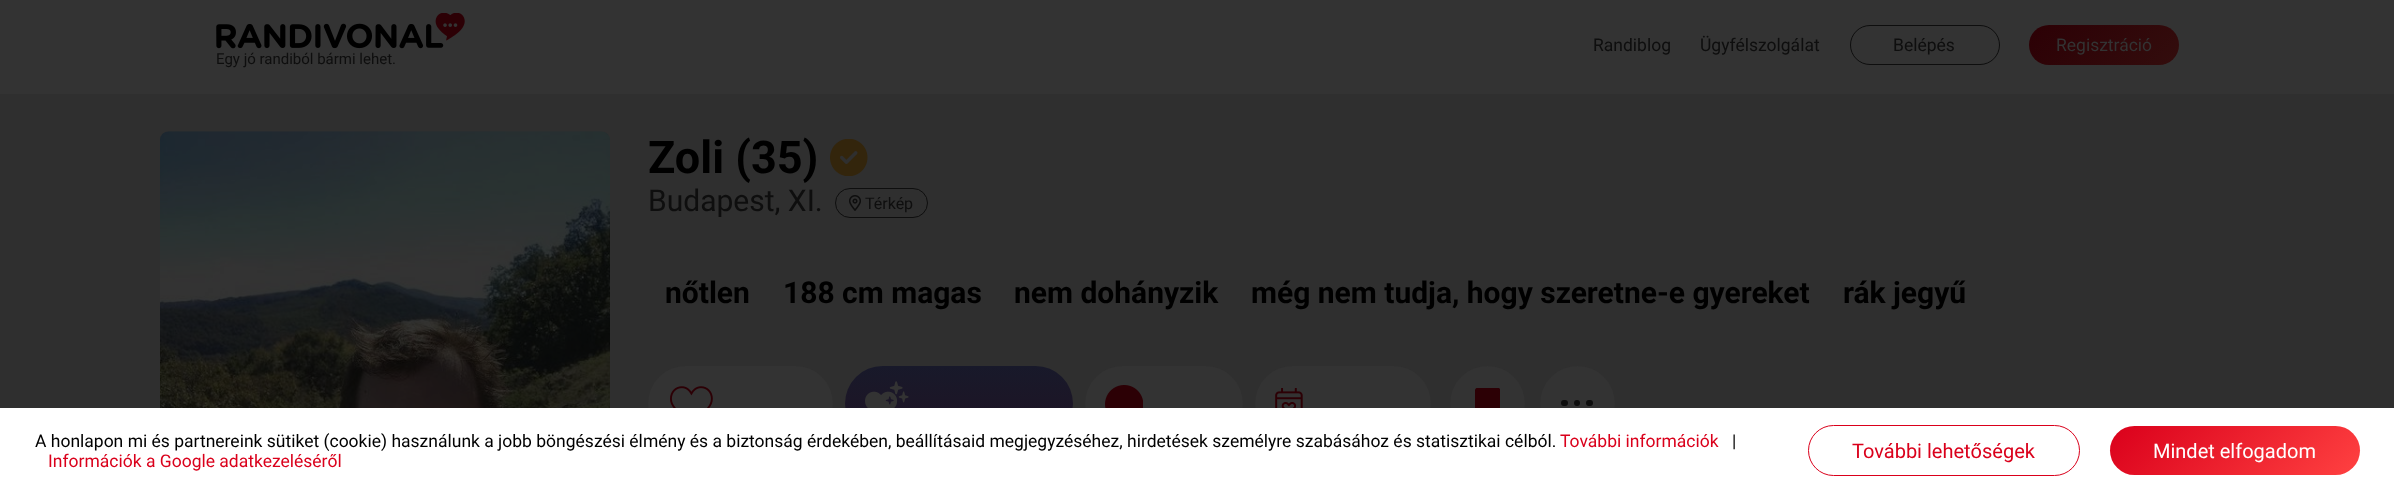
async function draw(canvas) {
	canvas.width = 2394;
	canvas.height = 493;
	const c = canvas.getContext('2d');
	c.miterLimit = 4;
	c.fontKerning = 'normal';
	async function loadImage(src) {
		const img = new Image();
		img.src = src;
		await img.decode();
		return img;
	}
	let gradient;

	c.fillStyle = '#2f2f2f';
	c.fillRect(0, 0, 2394, 493);
	c.fillStyle = '#333';
	c.fillRect(0, 0, 2394, 94);
	c.font = '17.5px Roboto';
	c.fillStyle = '#0e0e0e';
	c.fillText('Randiblog', 1593, 51);
	c.fillText('Ügyfélszolgálat', 1700, 51);
	c.beginPath();
	c.roundRect(1850.5, 25.5, 149, 39, 19.5);
	c.strokeStyle = '#0e0e0e';
	c.stroke();
	c.fillText('Belépés', 1893, 51);
	gradient = c.createLinearGradient(2056, -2.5, 2151, 93);
	gradient.addColorStop(0, '#2c0005');
	gradient.addColorStop(1, '#330d0d');
	c.fillStyle = gradient;
	c.beginPath();
	c.roundRect(2029, 25, 150, 40, 20);
	c.fill();
	c.fillStyle = '#333';
	c.fillText('Regisztráció', 2056, 51);
	c.drawImage(await loadImage('img1.png'), 216, 13, 249, 36);
	c.font = '15px Roboto';
	c.fillStyle = '#0e0e0e';
	c.fillText('Egy jó randiból bármi lehet.', 216, 64);
	c.drawImage(await loadImage('img2.png'), 160, 131, 450, 277);
	c.font = 'bold 45px Roboto';
	c.fillStyle = '#000';
	c.fillText('Zoli (35)', 648, 173);
	c.drawImage(await loadImage('img3.png'), 830, 139, 38, 37);
	c.font = '30px Roboto';
	c.fillStyle = '#0e0e0e';
	c.fillText('Budapest, XI.', 648, 211);
	c.beginPath();
	c.roundRect(835.5, 188.5, 92, 29, 14.5);
	c.stroke();
	c.drawImage(await loadImage('img4.png'), 849, 195, 12, 16);
	c.font = '16px Roboto';
	c.fillText('Térkép', 865, 209);
	c.font = 'bold 30px Roboto';
	c.fillStyle = '#000';
	for (const [text, x, y] of [
		['nőtlen', 665, 303],
		['188 cm magas', 783, 303],
		['nem dohányzik', 1014, 303],
		['még nem tudja, hogy szeretne-e gyereket', 1251, 303],
		['rák jegyű', 1843, 303],
	]) {
		c.fillText(text, x, y);
	}
	c.fillStyle = '#333';
	c.beginPath();
	c.roundRect(648, 366, 185, 75, 37.5);
	c.fill();
	c.drawImage(await loadImage('img5.png'), 670, 386, 43, 22);
	gradient = c.createLinearGradient(959, 366, 959, 441);
	gradient.addColorStop(0, '#18192a');
	gradient.addColorStop(1, '#1f1323');
	c.fillStyle = gradient;
	c.beginPath();
	c.roundRect(845, 366, 228, 75, 37.5);
	c.fill();
	c.drawImage(await loadImage('img6.png'), 865, 381, 44, 27);
	c.fillStyle = '#333';
	c.beginPath();
	c.roundRect(1085, 366, 158, 75, 37.5);
	c.fill();
	c.drawImage(await loadImage('img7.png'), 1105, 385, 38, 23);
	c.beginPath();
	c.roundRect(1255, 366, 176, 75, 37.5);
	c.fill();
	c.drawImage(await loadImage('img8.png'), 1275, 388, 28, 20);
	c.beginPath();
	c.arc(1487.5, 403.5, 37.5, 0, 2 * Math.PI);
	c.fill();
	c.save();
	c.beginPath();
	c.rect(1475, 388, 25, 33);
	c.clip();
	c.fillStyle = '#2c0005';
	c.beginPath();
	c.moveTo(1475, 421);
	c.lineTo(1487.5, 414);
	c.lineTo(1500.5, 421);
	c.lineTo(1500.5, 390.5);
	c.bezierCurveTo(1500.5, 389, 1499, 387.5, 1497, 387.5);
	c.lineTo(1478, 387.5);
	c.bezierCurveTo(1476.5, 387.5, 1475, 389, 1475, 390.5);
	c.closePath();
	c.fill();
	c.restore();
	c.beginPath();
	c.arc(1577.5, 403.5, 37.5, 0, 2 * Math.PI);
	c.fill();
	c.fillStyle = '#0e0e0e';
	c.beginPath();
	c.roundRect(1561, 400, 7, 6, 3);
	c.fill();
	c.beginPath();
	c.arc(1577, 403, 3, 0, 2 * Math.PI);
	c.fill();
	c.beginPath();
	c.roundRect(1586, 400, 7, 6, 3);
	c.fill();
	c.fillStyle = '#fff';
	c.fillRect(0, 408, 2394, 85);
	c.font = '17.5px Roboto';
	c.fillStyle = '#000';
	c.fillText('A honlapon mi és partnereink sütiket (cookie) használunk a jobb böngészési élmény és a biztonság érdekében, beállításaid megjegyzéséhez, hirdetések személyre szabásához és statisztikai célból.', 35, 447);
	c.fillStyle = '#da001b';
	c.fillText('További információk', 1560, 447);
	c.fillStyle = '#000';
	c.fillText('|', 1732, 447);
	c.fillStyle = '#da001b';
	c.fillText('Információk a Google adatkezeléséről', 48, 467);
	c.beginPath();
	c.roundRect(1808.5, 425.5, 271, 50, 25);
	c.strokeStyle = '#da001b';
	c.stroke();
	c.font = '20px Roboto';
	c.fillText('További lehetőségek', 1852, 458);
	gradient = c.createLinearGradient(2160, 376, 2310, 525);
	gradient.addColorStop(0, '#da001b');
	gradient.addColorStop(1, '#ff4141');
	c.fillStyle = gradient;
	c.beginPath();
	c.roundRect(2110, 426, 250, 49, 24.5);
	c.fill();
	c.fillStyle = '#fff';
	c.fillText('Mindet elfogadom', 2153, 458);
}

draw(document.querySelector('canvas'));
